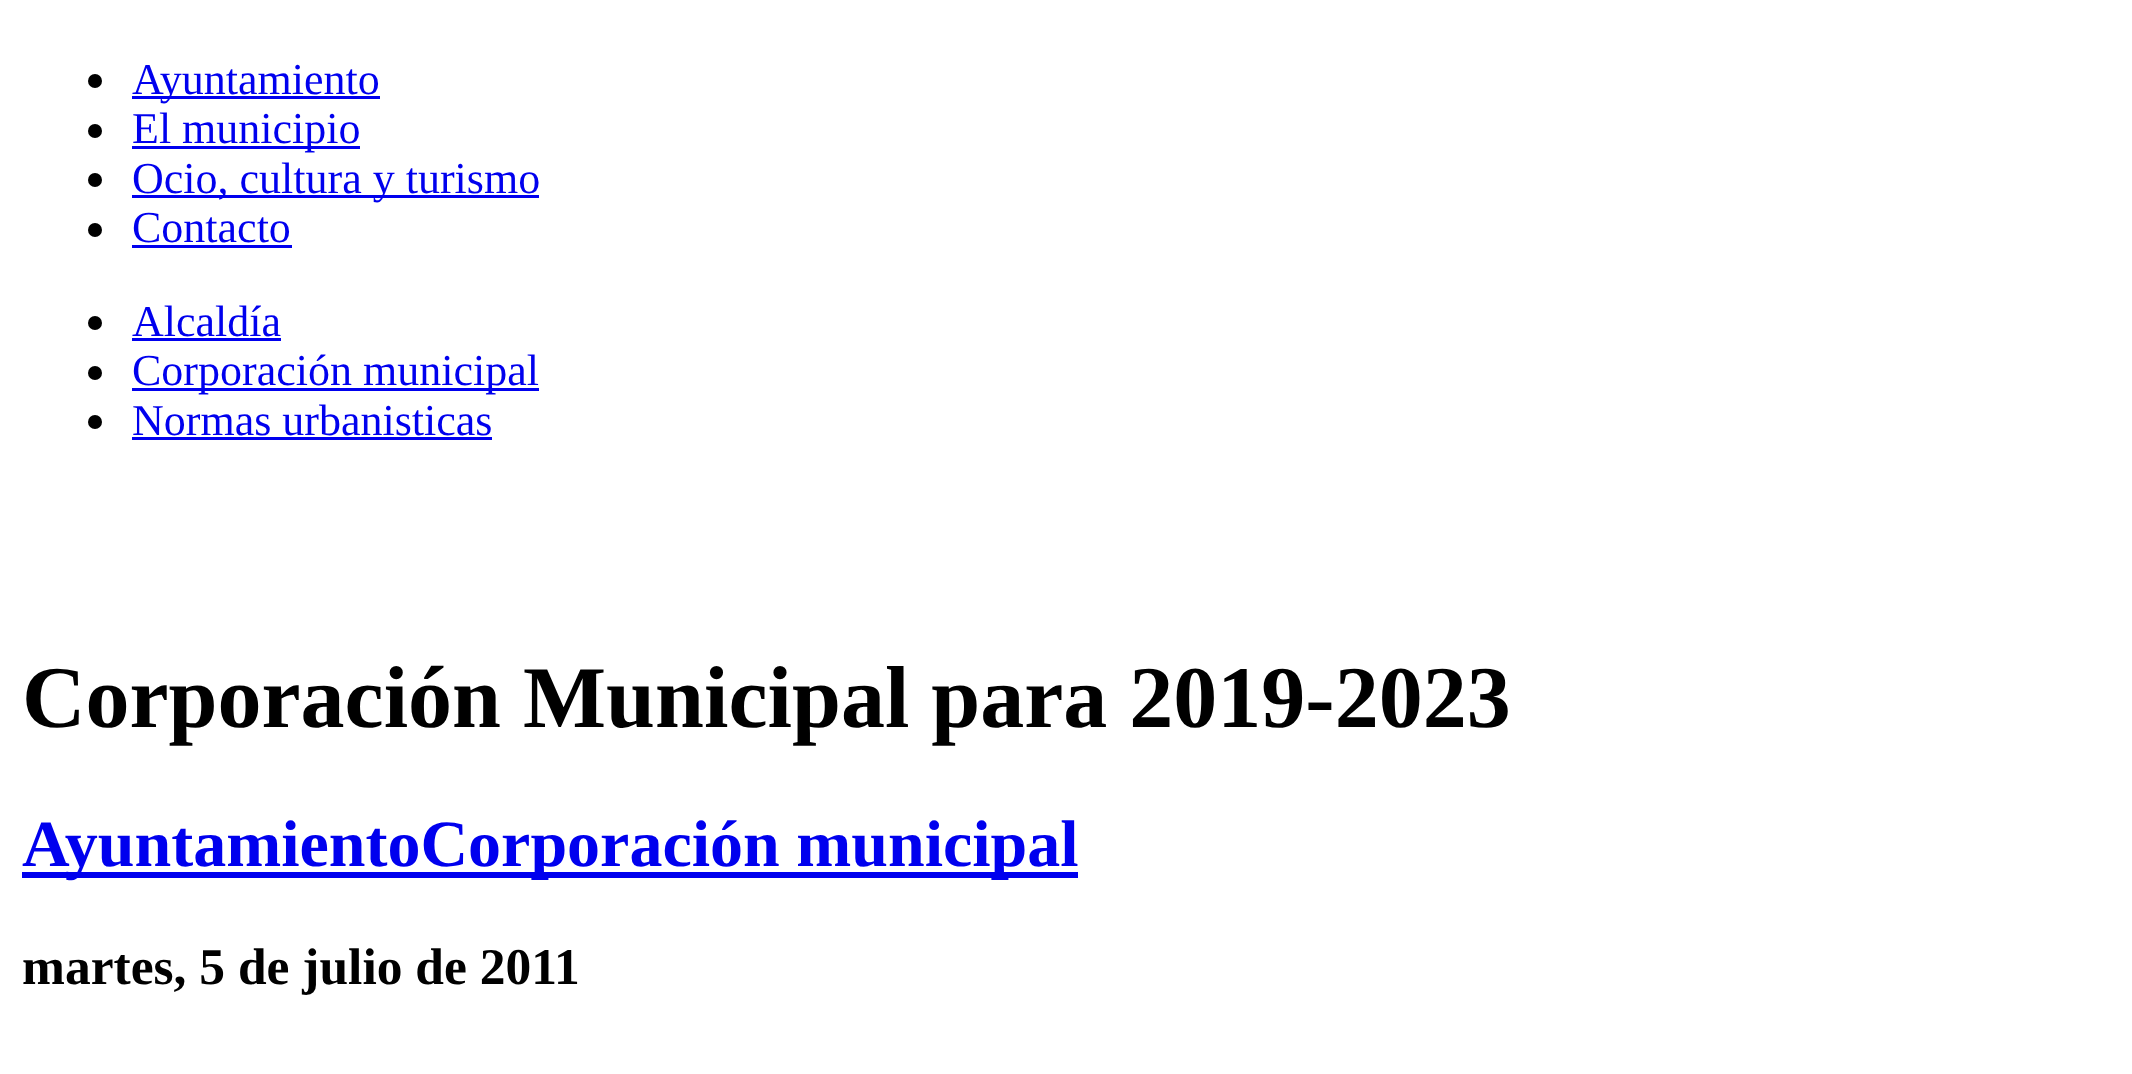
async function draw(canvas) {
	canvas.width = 2132;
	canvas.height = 1074;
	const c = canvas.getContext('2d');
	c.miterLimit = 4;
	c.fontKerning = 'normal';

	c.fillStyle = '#fff';
	c.fillRect(0, 0, 2132, 1074);
	c.fillStyle = '#000';
	c.beginPath();
	c.arc(95, 81, 7, 0, 2 * Math.PI);
	c.fill();
	c.fillStyle = '#00e';
	c.fillRect(132, 96, 248, 3);
	c.font = '44px Liberation Serif';
	c.fillText('Ayuntamiento', 132, 94);
	c.fillStyle = '#000';
	c.beginPath();
	c.arc(95, 131, 7, 0, 2 * Math.PI);
	c.fill();
	c.fillStyle = '#00e';
	c.fillRect(132, 146, 228, 3);
	c.fillText('El municipio', 132, 143);
	c.fillStyle = '#000';
	c.beginPath();
	c.arc(95, 180, 7, 0, 2 * Math.PI);
	c.fill();
	c.fillStyle = '#00e';
	c.fillRect(132, 195, 407, 3);
	c.fillText('Ocio, cultura y turismo', 132, 193);
	c.fillStyle = '#000';
	c.beginPath();
	c.arc(95, 230, 7, 0, 2 * Math.PI);
	c.fill();
	c.fillStyle = '#00e';
	c.fillText('Contacto', 132, 242);
	c.fillRect(132, 245, 160, 3);
	c.fillStyle = '#000';
	c.beginPath();
	c.arc(95, 323, 7, 0, 2 * Math.PI);
	c.fill();
	c.fillStyle = '#00e';
	c.fillText('Alcaldía', 132, 336);
	c.fillRect(132, 338, 149, 3);
	c.fillStyle = '#000';
	c.beginPath();
	c.arc(95, 373, 7, 0, 2 * Math.PI);
	c.fill();
	c.fillStyle = '#00e';
	c.fillRect(132, 388, 407, 3);
	c.fillText('Corporación municipal', 132, 385);
	c.fillStyle = '#000';
	c.beginPath();
	c.arc(95, 422, 7, 0, 2 * Math.PI);
	c.fill();
	c.fillStyle = '#00e';
	c.fillText('Normas urbanisticas', 132, 435);
	c.fillRect(132, 437, 360, 3);
	c.font = 'bold 88px Liberation Serif';
	c.fillStyle = '#000';
	c.fillText('Corporación Municipal para 2019-2023', 22, 727);
	c.fillStyle = '#00e';
	c.fillRect(22, 872, 1056, 6);
	c.font = 'bold 66px Liberation Serif';
	c.fillText('AyuntamientoCorporación municipal', 22, 866);
	c.font = 'bold 51.5px Liberation Serif';
	c.fillStyle = '#000';
	c.fillText('martes, 5 de julio de 2011', 22, 984);
}

draw(document.querySelector('canvas'));
